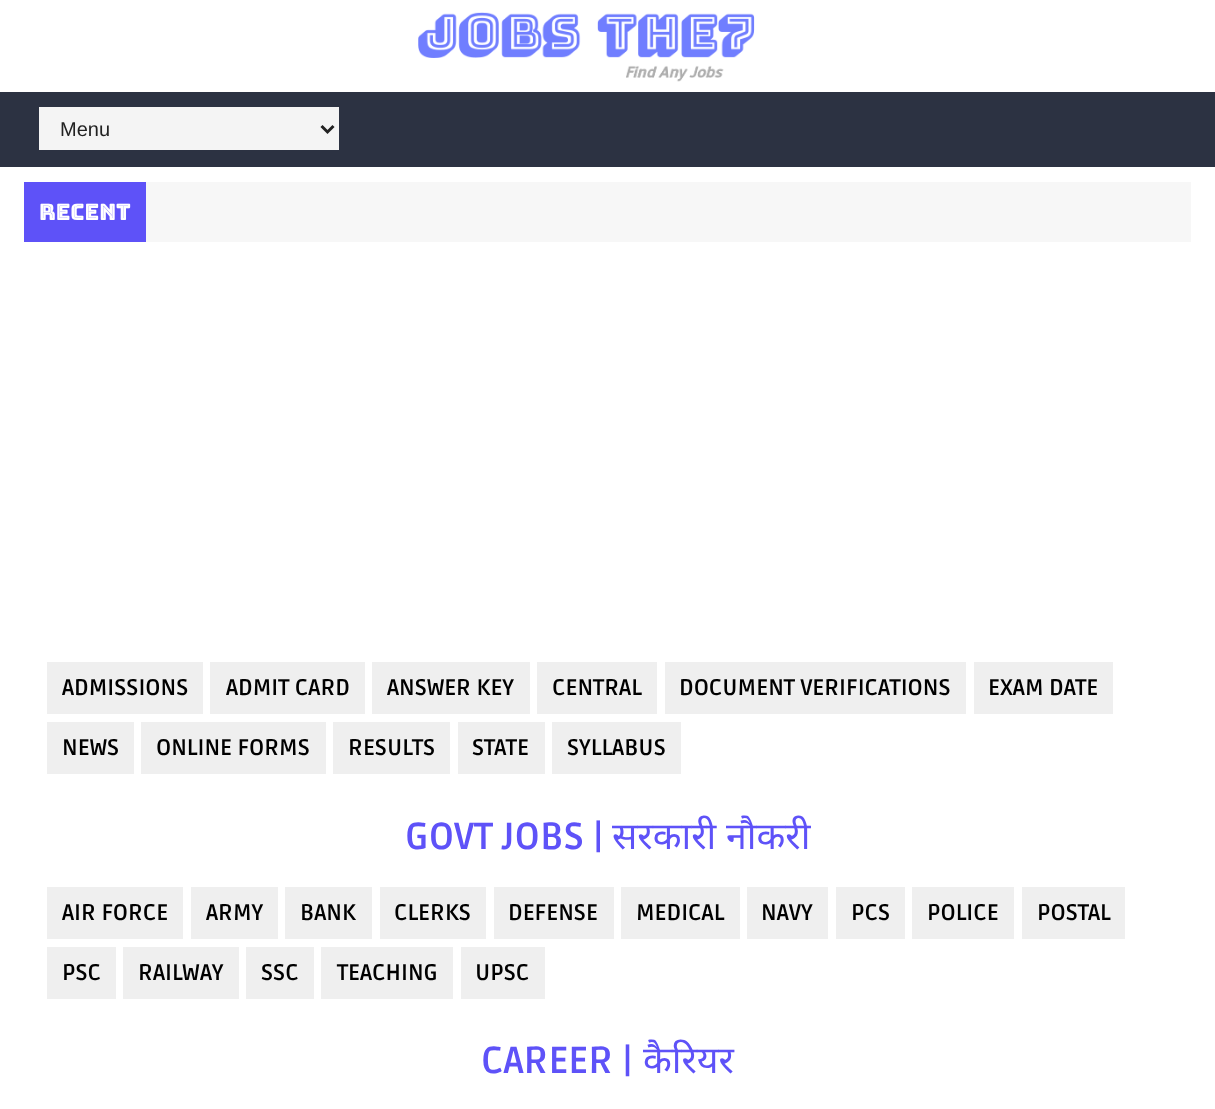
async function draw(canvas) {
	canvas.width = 1215;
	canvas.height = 1109;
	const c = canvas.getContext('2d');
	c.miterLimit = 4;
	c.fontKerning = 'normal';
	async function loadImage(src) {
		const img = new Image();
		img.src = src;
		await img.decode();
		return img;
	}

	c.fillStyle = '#fff';
	c.fillRect(0, 0, 1215, 1109);
	c.drawImage(await loadImage('img1.png'), 418, 12, 337, 70);
	c.fillStyle = '#2c3242';
	c.fillRect(0, 92, 1215, 75);
	c.fillStyle = '#f4f4f4';
	c.fillRect(39, 107, 300, 43);
	c.beginPath();
	c.moveTo(321.5, 126);
	c.lineTo(327.5, 132);
	c.lineTo(333.5, 126);
	c.strokeStyle = '#222';
	c.lineWidth = 3;
	c.stroke();
	c.font = '20px Liberation Sans';
	c.fillStyle = '#222';
	c.fillText('Menu', 60, 136);
	c.fillStyle = '#f7f7f7';
	c.fillRect(146, 182, 1045, 60);
	c.fillStyle = '#5e52f8';
	c.fillRect(24, 182, 122, 60);
	c.font = '22.5px Bungee Inline';
	c.fillStyle = '#fff';
	c.fillText('RECENT', 39, 220);
	c.fillStyle = '#efefef';
	c.fillRect(47, 662, 156, 52);
	c.font = 'bold 22.5px Ruda';
	c.fillStyle = '#000';
	c.fillText('ADMISSIONS', 62, 695);
	c.fillStyle = '#efefef';
	c.fillRect(210, 662, 155, 52);
	c.fillStyle = '#000';
	c.fillText('ADMIT CARD', 226, 695);
	c.fillStyle = '#efefef';
	c.fillRect(372, 662, 158, 52);
	c.fillStyle = '#000';
	c.fillText('ANSWER KEY', 387, 695);
	c.fillStyle = '#efefef';
	c.fillRect(537, 662, 120, 52);
	c.fillStyle = '#000';
	c.fillText('CENTRAL', 552, 695);
	c.fillStyle = '#efefef';
	c.fillRect(665, 662, 301, 52);
	c.fillStyle = '#000';
	c.fillText('DOCUMENT VERIFICATIONS', 679, 695);
	c.fillStyle = '#efefef';
	c.fillRect(974, 662, 139, 52);
	c.fillStyle = '#000';
	c.fillText('EXAM DATE', 988, 695);
	c.fillStyle = '#efefef';
	c.fillRect(47, 722, 87, 52);
	c.fillStyle = '#000';
	c.fillText('NEWS', 62, 755);
	c.fillStyle = '#efefef';
	c.fillRect(141, 722, 185, 52);
	c.fillStyle = '#000';
	c.fillText('ONLINE FORMS', 156, 755);
	c.fillStyle = '#efefef';
	c.fillRect(333, 722, 117, 52);
	c.fillStyle = '#000';
	c.fillText('RESULTS', 348, 755);
	c.fillStyle = '#efefef';
	c.fillRect(458, 722, 87, 52);
	c.fillStyle = '#000';
	c.fillText('STATE', 472, 755);
	c.fillStyle = '#efefef';
	c.fillRect(552, 722, 129, 52);
	c.fillStyle = '#000';
	c.fillText('SYLLABUS', 567, 755);
	c.font = 'bold 37.5px Ruda';
	c.fillStyle = '#5e52f8';
	c.fillText('GOVT JOBS |', 405, 849);
	c.font = '37.5px Noto Sans';
	c.fillText('सरकारी', 612, 849);
	c.fillText('नौकरी', 726, 849);
	c.fillStyle = '#efefef';
	c.fillRect(47, 887, 136, 52);
	c.font = 'bold 22.5px Ruda';
	c.fillStyle = '#000';
	c.fillText('AIR FORCE', 62, 920);
	c.fillStyle = '#efefef';
	c.fillRect(191, 887, 87, 52);
	c.fillStyle = '#000';
	c.fillText('ARMY', 206, 920);
	c.fillStyle = '#efefef';
	c.fillRect(285, 887, 87, 52);
	c.fillStyle = '#000';
	c.fillText('BANK', 300, 920);
	c.fillStyle = '#efefef';
	c.fillRect(380, 887, 106, 52);
	c.fillStyle = '#000';
	c.fillText('CLERKS', 394, 920);
	c.fillStyle = '#efefef';
	c.fillRect(494, 887, 120, 52);
	c.fillStyle = '#000';
	c.fillText('DEFENSE', 508, 920);
	c.fillStyle = '#efefef';
	c.fillRect(621, 887, 119, 52);
	c.fillStyle = '#000';
	c.fillText('MEDICAL', 636, 920);
	c.fillStyle = '#efefef';
	c.fillRect(747, 887, 81, 52);
	c.fillStyle = '#000';
	c.fillText('NAVY', 761, 920);
	c.fillStyle = '#efefef';
	c.fillRect(836, 887, 69, 52);
	c.fillStyle = '#000';
	c.fillText('PCS', 851, 920);
	c.fillStyle = '#efefef';
	c.fillRect(912, 887, 102, 52);
	c.fillStyle = '#000';
	c.fillText('POLICE', 927, 920);
	c.fillStyle = '#efefef';
	c.fillRect(1022, 887, 103, 52);
	c.fillStyle = '#000';
	c.fillText('POSTAL', 1037, 920);
	c.fillStyle = '#efefef';
	c.fillRect(47, 947, 69, 52);
	c.fillStyle = '#000';
	c.fillText('PSC', 62, 980);
	c.fillStyle = '#efefef';
	c.fillRect(123, 947, 116, 52);
	c.fillStyle = '#000';
	c.fillText('RAILWAY', 138, 980);
	c.fillStyle = '#efefef';
	c.fillRect(246, 947, 68, 52);
	c.fillStyle = '#000';
	c.fillText('SSC', 261, 980);
	c.fillStyle = '#efefef';
	c.fillRect(321, 947, 132, 52);
	c.fillStyle = '#000';
	c.fillText('TEACHING', 337, 980);
	c.fillStyle = '#efefef';
	c.fillRect(461, 947, 84, 52);
	c.fillStyle = '#000';
	c.fillText('UPSC', 475, 980);
	c.font = 'bold 37.5px Ruda';
	c.fillStyle = '#5e52f8';
	c.fillText('CAREER |', 481, 1073);
	c.font = '37.5px Noto Sans';
	c.fillText('कैरियर', 643, 1073);
}

draw(document.querySelector('canvas'));
